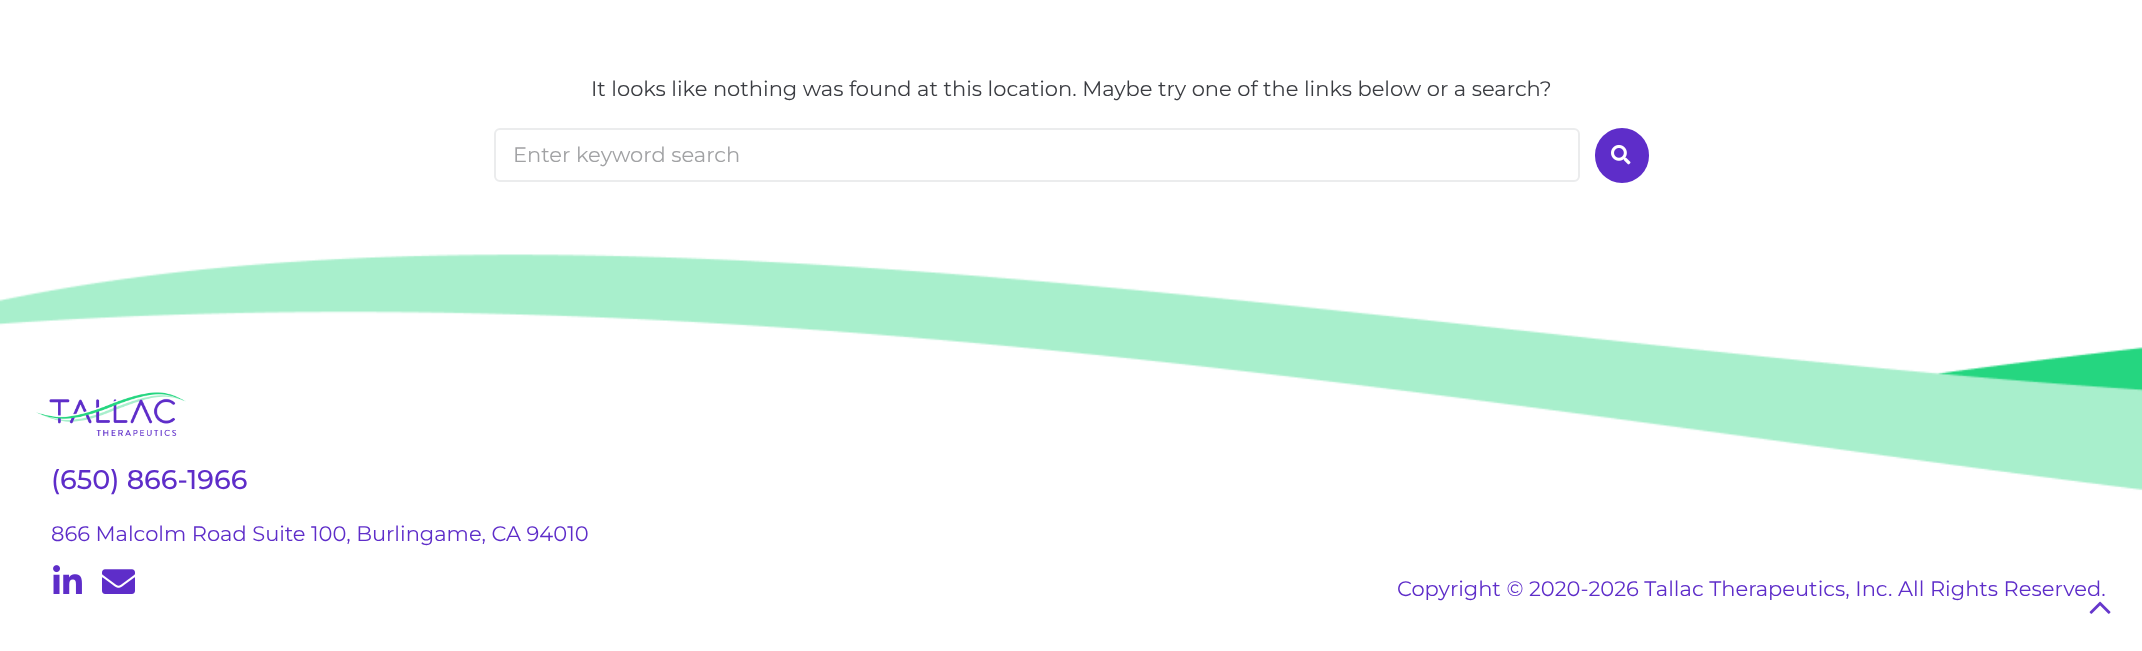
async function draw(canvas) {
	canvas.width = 2142;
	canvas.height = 651;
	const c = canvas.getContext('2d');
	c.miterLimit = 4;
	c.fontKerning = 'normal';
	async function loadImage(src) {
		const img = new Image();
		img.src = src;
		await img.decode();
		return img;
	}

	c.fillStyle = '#fff';
	c.fillRect(0, 0, 2142, 651);
	c.font = '21px Montserrat';
	c.fillStyle = '#3b3d42';
	c.fillText('It looks like nothing was found at this location. Maybe try one of the links below or a search?', 591, 96);
	c.beginPath();
	c.roundRect(495, 129, 1084, 52, 5);
	c.strokeStyle = '#ebeced';
	c.lineWidth = 2;
	c.stroke();
	c.fillStyle = '#a1a2a4';
	c.fillText('Enter keyword search', 513, 162);
	c.fillStyle = '#5e2dc9';
	c.beginPath();
	c.roundRect(1595, 128, 54, 55, 27);
	c.fill();
	c.drawImage(await loadImage('img1.png'), 1611, 144, 20, 21);
	c.drawImage(await loadImage('img2.png'), 0, 254, 2142, 237);
	c.drawImage(await loadImage('img3.png'), 36, 392, 150, 44);
	c.font = '500 27px Montserrat';
	c.fillText('(650) 866-1966', 51, 489);
	c.font = '21px Montserrat';
	c.fillText('866 Malcolm Road Suite 100, Burlingame, CA 94010', 51, 541);
	c.drawImage(await loadImage('img4.png'), 53, 565, 29, 29);
	c.drawImage(await loadImage('img5.png'), 102, 569, 33, 25);
	c.fillText('Copyright © 2020-2026 Tallac Therapeutics, Inc. All Rights Reserved.', 1397, 596);
	c.drawImage(await loadImage('img6.png'), 2089, 601, 22, 13);
}

draw(document.querySelector('canvas'));
